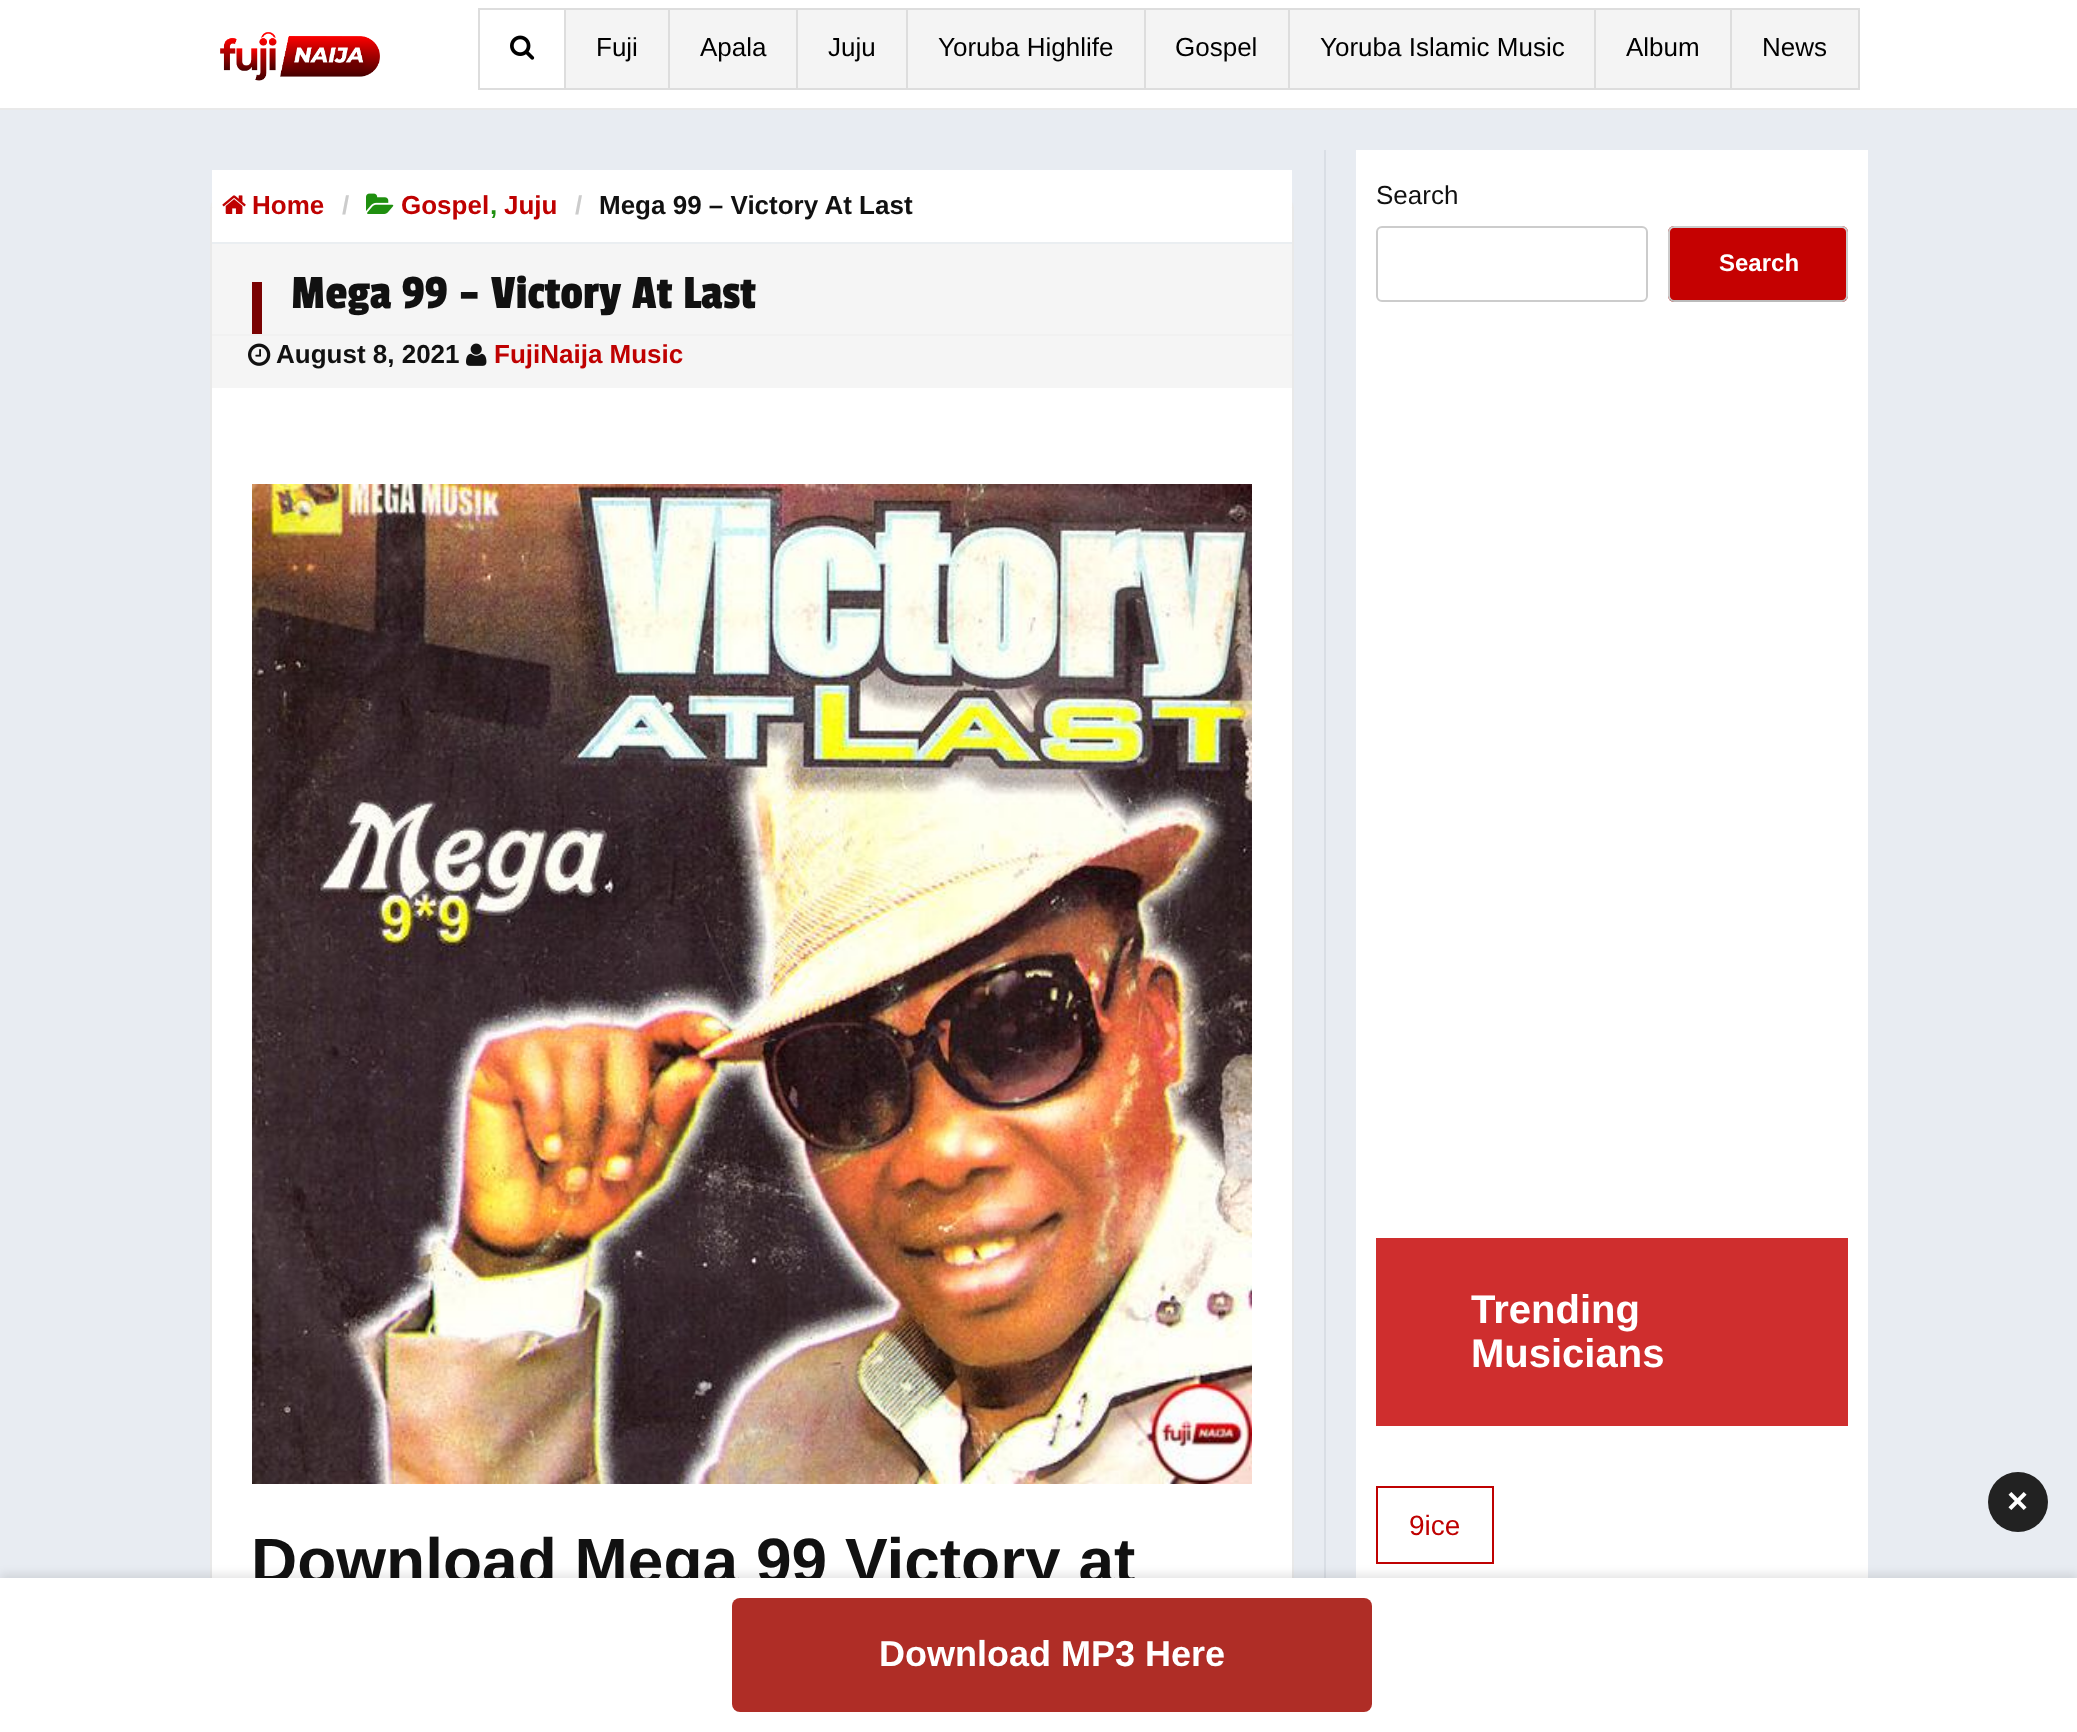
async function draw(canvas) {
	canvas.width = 2077;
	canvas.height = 1732;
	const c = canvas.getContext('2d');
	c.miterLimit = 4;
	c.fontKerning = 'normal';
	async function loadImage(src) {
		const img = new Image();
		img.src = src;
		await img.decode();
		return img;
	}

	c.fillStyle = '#e8ecf2';
	c.fillRect(0, 0, 2077, 1732);
	c.fillStyle = '#fff';
	c.fillRect(0, 0, 2077, 108);
	c.fillStyle = '#e9e9e9';
	c.fillRect(0, 108, 2077, 2);
	c.drawImage(await loadImage('img1.png'), 220, 32, 160, 49);
	c.strokeStyle = '#ddd';
	c.lineWidth = 2;
	c.strokeRect(479, 9, 86, 80);
	c.drawImage(await loadImage('img2.png'), 510, 35, 25, 25);
	c.fillStyle = '#f4f4f4';
	c.beginPath();
	c.rect(565, 9, 104, 80);
	c.fill();
	c.stroke();
	c.font = '26px Liberation Sans';
	c.fillStyle = '#000';
	c.fillText('Fuji', 596, 56);
	c.fillStyle = '#f4f4f4';
	c.beginPath();
	c.rect(669, 9, 128, 80);
	c.fill();
	c.stroke();
	c.fillStyle = '#000';
	c.fillText('Apala', 700, 56);
	c.fillStyle = '#f4f4f4';
	c.beginPath();
	c.rect(797, 9, 110, 80);
	c.fill();
	c.stroke();
	c.fillStyle = '#000';
	c.fillText('Juju', 828, 56);
	c.fillStyle = '#f4f4f4';
	c.beginPath();
	c.rect(907, 9, 238, 80);
	c.fill();
	c.stroke();
	c.fillStyle = '#000';
	c.fillText('Yoruba Highlife', 938, 56);
	c.fillStyle = '#f4f4f4';
	c.beginPath();
	c.rect(1145, 9, 144, 80);
	c.fill();
	c.stroke();
	c.fillStyle = '#000';
	c.fillText('Gospel', 1175, 56);
	c.fillStyle = '#f4f4f4';
	c.beginPath();
	c.rect(1289, 9, 306, 80);
	c.fill();
	c.stroke();
	c.fillStyle = '#000';
	c.fillText('Yoruba Islamic Music', 1320, 56);
	c.fillStyle = '#f4f4f4';
	c.beginPath();
	c.rect(1595, 9, 136, 80);
	c.fill();
	c.stroke();
	c.fillStyle = '#000';
	c.fillText('Album', 1626, 56);
	c.fillStyle = '#f4f4f4';
	c.beginPath();
	c.rect(1731, 9, 128, 80);
	c.fill();
	c.stroke();
	c.fillStyle = '#000';
	c.fillText('News', 1762, 56);
	c.fillStyle = '#d9dee5';
	c.fillRect(1324, 150, 2, 1428);
	c.fillStyle = '#fff';
	c.beginPath();
	c.roundRect(211, 199, 1082, 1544, 9);
	c.fill();
	c.strokeStyle = '#e9e9e9';
	c.stroke();
	c.fillRect(212, 170, 1080, 37);
	c.fillStyle = '#eaeef1';
	c.fillRect(212, 242, 1080, 2);
	c.drawImage(await loadImage('img3.png'), 222, 195, 24, 19);
	c.font = 'bold 26px Liberation Sans';
	c.fillStyle = '#bf0101';
	c.fillText('Home', 252, 214);
	c.fillStyle = '#ccc';
	c.fillText('/', 342, 214);
	c.drawImage(await loadImage('img4.png'), 366, 193, 28, 21);
	c.fillStyle = '#bf0101';
	c.fillText('Gospel', 401, 214);
	c.fillStyle = '#1f8f0f';
	c.fillText(',', 490, 214);
	c.fillStyle = '#bf0101';
	c.fillText('Juju', 504, 214);
	c.fillStyle = '#ccc';
	c.fillText('/', 575, 214);
	c.fillStyle = '#111';
	c.fillText('Mega 99 – Victory At Last', 599, 214);
	c.fillStyle = '#f5f5f5';
	c.fillRect(212, 244, 1080, 90);
	c.fillStyle = '#7a0202';
	c.fillRect(252, 282, 10, 52);
	c.font = '50px Passion One';
	c.fillStyle = '#111';
	c.fillText('Mega 99 – Victory At Last', 291, 308);
	c.fillStyle = '#f1f1f1';
	c.fillRect(212, 334, 1080, 2);
	c.fillStyle = '#f5f5f5';
	c.fillRect(212, 336, 1080, 52);
	c.drawImage(await loadImage('img5.png'), 248, 343, 23, 23);
	c.font = 'bold 26px Liberation Sans';
	c.fillStyle = '#111';
	c.fillText('August 8, 2021', 276, 363);
	c.drawImage(await loadImage('img6.png'), 466, 343, 21, 23);
	c.fillStyle = '#bf0101';
	c.fillText('FujiNaija Music', 494, 363);
	c.drawImage(await loadImage('img7.png'), 252, 484, 1000, 1000);
	c.font = 'bold 64px Liberation Sans';
	c.fillStyle = '#111';
	c.fillText('Download Mega 99 Victory at', 251, 1583);
	c.fillStyle = '#fff';
	c.fillRect(1356, 150, 512, 1428);
	c.font = '26px Liberation Sans';
	c.fillStyle = '#111';
	c.fillText('Search', 1376, 204);
	c.beginPath();
	c.roundRect(1377, 227, 270, 74, 5);
	c.strokeStyle = '#ccc';
	c.stroke();
	c.fillStyle = '#c50101';
	c.beginPath();
	c.roundRect(1668, 226, 180, 76, 6);
	c.fill();
	c.beginPath();
	c.moveTo(1845.5, 299.5);
	c.bezierCurveTo(1844.5, 300.5, 1843.5, 301, 1842, 301);
	c.lineTo(1674, 301);
	c.bezierCurveTo(1672.5, 301, 1671.5, 300.5, 1670.5, 299.5);
	c.strokeStyle = '#bbb';
	c.stroke();
	c.beginPath();
	c.moveTo(1670.5, 299.5);
	c.bezierCurveTo(1669.5, 298.5, 1669, 297.5, 1669, 296);
	c.lineTo(1669, 232);
	c.bezierCurveTo(1669, 230.5, 1669.5, 229.5, 1670.5, 228.5);
	c.bezierCurveTo(1671.5, 227.5, 1672.5, 227, 1674, 227);
	c.lineTo(1842, 227);
	c.bezierCurveTo(1843.5, 227, 1844.5, 227.5, 1845.5, 228.5);
	c.bezierCurveTo(1846.5, 229.5, 1847, 230.5, 1847, 232);
	c.lineTo(1847, 296);
	c.bezierCurveTo(1847, 297.5, 1846.5, 298.5, 1845.5, 299.5);
	c.strokeStyle = '#ccc';
	c.stroke();
	c.font = 'bold 24px Liberation Sans';
	c.fillStyle = '#fff';
	c.fillText('Search', 1719, 271);
	c.fillStyle = '#cf2e2e';
	c.fillRect(1376, 1238, 472, 188);
	c.font = 'bold 40px Liberation Sans';
	c.fillStyle = '#fff';
	c.fillText('Trending', 1471, 1323);
	c.fillText('Musicians', 1471, 1367);
	c.strokeStyle = '#bf0101';
	c.strokeRect(1377, 1487, 116, 76);
	c.font = '28px Liberation Sans';
	c.fillStyle = '#bf0101';
	c.fillText('9ice', 1409, 1535);
	c.fillStyle = '#222';
	c.beginPath();
	c.arc(2018, 1502, 30, 0, 2 * Math.PI);
	c.fill();
	c.font = 'bold 36px Liberation Sans';
	c.fillStyle = '#fff';
	c.fillText('×', 2007, 1513);
	c.fillStyle = '#0000001a';
	c.filter = 'blur(5px)';
	c.beginPath();
	c.rect(0, 1574, 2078, 154);
	c.fill();
	c.filter = 'none';
	c.fillStyle = '#fff';
	c.fillRect(0, 1578, 2077, 154);
	c.fillStyle = '#af2d26';
	c.beginPath();
	c.roundRect(732, 1598, 640, 114, 8);
	c.fill();
	c.fillStyle = '#fff';
	c.fillText('Download MP3 Here', 879, 1666);
}

draw(document.querySelector('canvas'));
